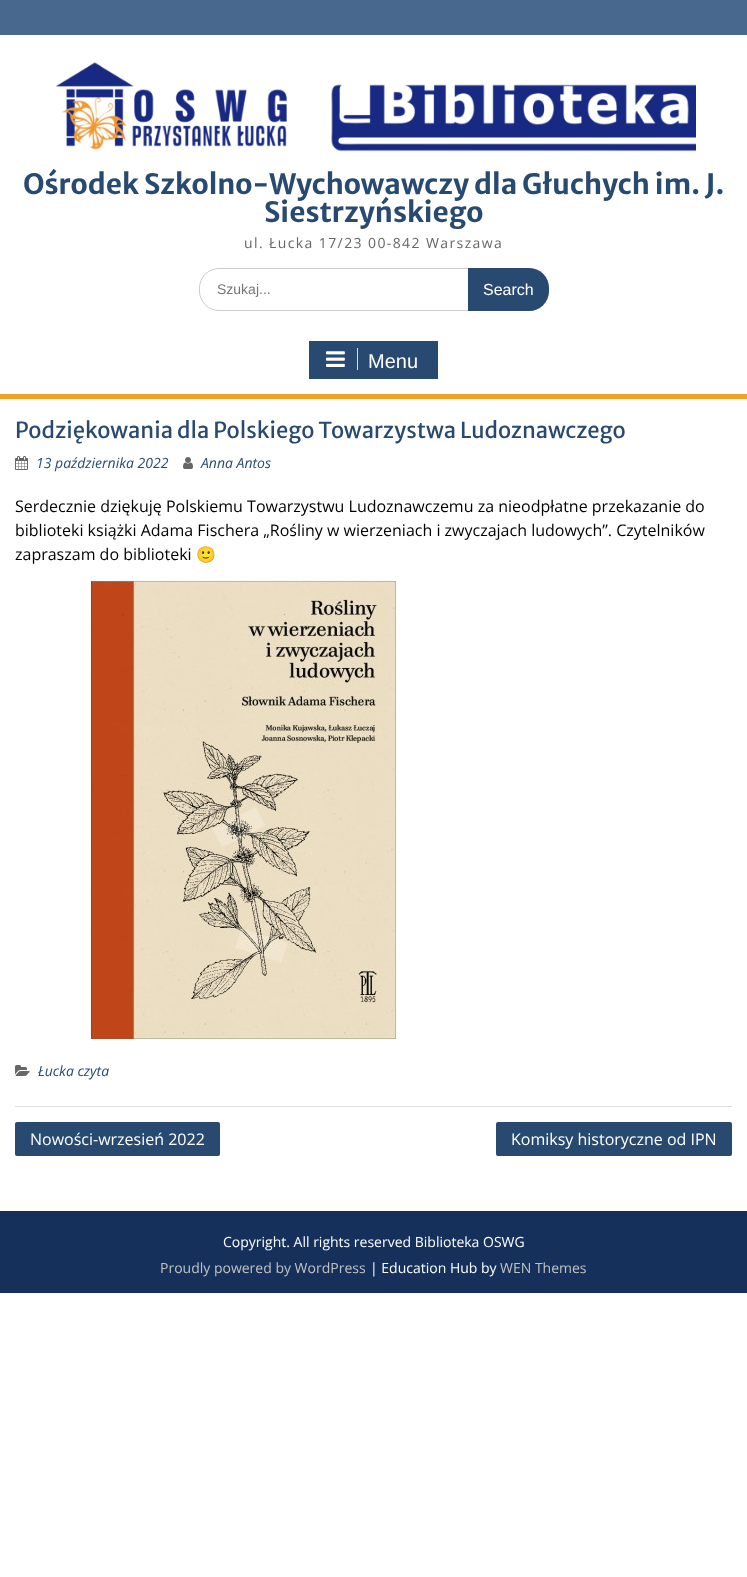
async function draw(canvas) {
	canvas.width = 747;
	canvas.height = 1577;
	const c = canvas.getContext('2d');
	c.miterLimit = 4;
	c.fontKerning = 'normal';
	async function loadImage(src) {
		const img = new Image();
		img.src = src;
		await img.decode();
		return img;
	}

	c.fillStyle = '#fff';
	c.fillRect(0, 0, 747, 1577);
	c.fillStyle = '#49688e';
	c.fillRect(0, 0, 747, 35);
	c.drawImage(await loadImage('img1.png'), 55, 62, 641, 90);
	c.font = 'bold 28px Merriweather Sans';
	c.fillStyle = '#294a70';
	c.fillText('Ośrodek Szkolno-Wychowawczy dla Głuchych im. J.', 23, 194);
	c.fillText('Siestrzyńskiego', 264, 222);
	c.letterSpacing = '1.4px';
	c.font = '14px Open Sans';
	c.fillStyle = '#666';
	c.fillText('ul. Łucka 17/23 00-842 Warszawa', 244, 248);
	c.beginPath();
	c.roundRect(199.5, 268.5, 349, 42, 19.5);
	c.strokeStyle = '#ccc';
	c.stroke();
	c.letterSpacing = '0px';
	c.font = '14px Liberation Sans';
	c.fillStyle = '#757575';
	c.fillText('Szukaj...', 217, 294);
	c.fillStyle = '#294a70';
	c.beginPath();
	c.roundRect(468, 268, 81, 43, [0, 20, 20, 0]);
	c.fill();
	c.font = '16px Liberation Sans';
	c.fillStyle = '#fff';
	c.fillText('Search', 483, 295);
	for (const [x, y, w, h, color] of [
		[0, 394, 747, 5, '#f4a024'],
		[309, 341, 129, 38, '#294a70'],
		[357, 348, 1, 22, '#ddd'],
	]) {
		c.fillStyle = color;
		c.fillRect(x, y, w, h);
	}
	c.drawImage(await loadImage('img2.png'), 326, 351, 19, 16);
	c.font = '20px Liberation Sans';
	c.fillStyle = '#fff';
	c.fillText('Menu', 368, 368);
	c.fillStyle = '#ddd';
	c.fillRect(15, 1106, 717, 1);
	c.font = '22px Merriweather Sans';
	c.fillStyle = '#294a70';
	c.fillText('Podziękowania dla Polskiego Towarzystwa Ludoznawczego', 15, 438);
	c.drawImage(await loadImage('img3.png'), 15, 456, 13, 14);
	c.font = 'italic 14px Open Sans';
	c.fillText('13 października 2022', 36, 468);
	c.drawImage(await loadImage('img4.png'), 183, 457, 10, 12);
	c.fillText('Anna Antos', 201, 468);
	c.font = '16px Open Sans';
	c.fillStyle = '#000';
	for (const [text, x, y] of [
		['Serdecznie dziękuję Polskiemu Towarzystwu Ludoznawczemu za nieodpłatne przekazanie do', 15, 512],
		['biblioteki książki Adama Fischera „Rośliny w wierzeniach i zwyczajach ludowych”. Czytelników', 15, 536],
		['zapraszam do biblioteki', 15, 560],
	]) {
		c.fillText(text, x, y);
	}
	c.font = '16px Noto Color Emoji';
	c.fillText('🙂', 196, 560);
	c.drawImage(await loadImage('img5.png'), 88, 581, 311, 458);
	c.drawImage(await loadImage('img6.png'), 15, 1065, 15, 11);
	c.font = 'italic 14px Open Sans';
	c.fillStyle = '#294a70';
	c.fillText('Łucka czyta', 38, 1076);
	c.beginPath();
	c.roundRect(15, 1122, 205, 34, 2);
	c.fill();
	c.font = '16px Open Sans';
	c.fillStyle = '#fff';
	c.fillText('Nowości-wrzesień 2022', 30, 1145);
	c.fillStyle = '#294a70';
	c.beginPath();
	c.roundRect(496, 1122, 236, 34, 2);
	c.fill();
	c.fillStyle = '#fff';
	c.fillText('Komiksy historyczne od IPN', 511, 1145);
	c.fillStyle = '#15305b';
	c.fillRect(0, 1211, 747, 82);
	c.font = '14px Open Sans';
	c.fillStyle = '#fff';
	c.fillText('Copyright. All rights reserved Biblioteka OSWG', 223, 1247);
	c.fillStyle = '#c2c2c2';
	c.fillText('Proudly powered by WordPress', 160, 1273);
	c.fillStyle = '#fff';
	c.fillText('| Education Hub by', 370, 1273);
	c.fillStyle = '#c2c2c2';
	c.fillText('WEN Themes', 500, 1273);
}

draw(document.querySelector('canvas'));
